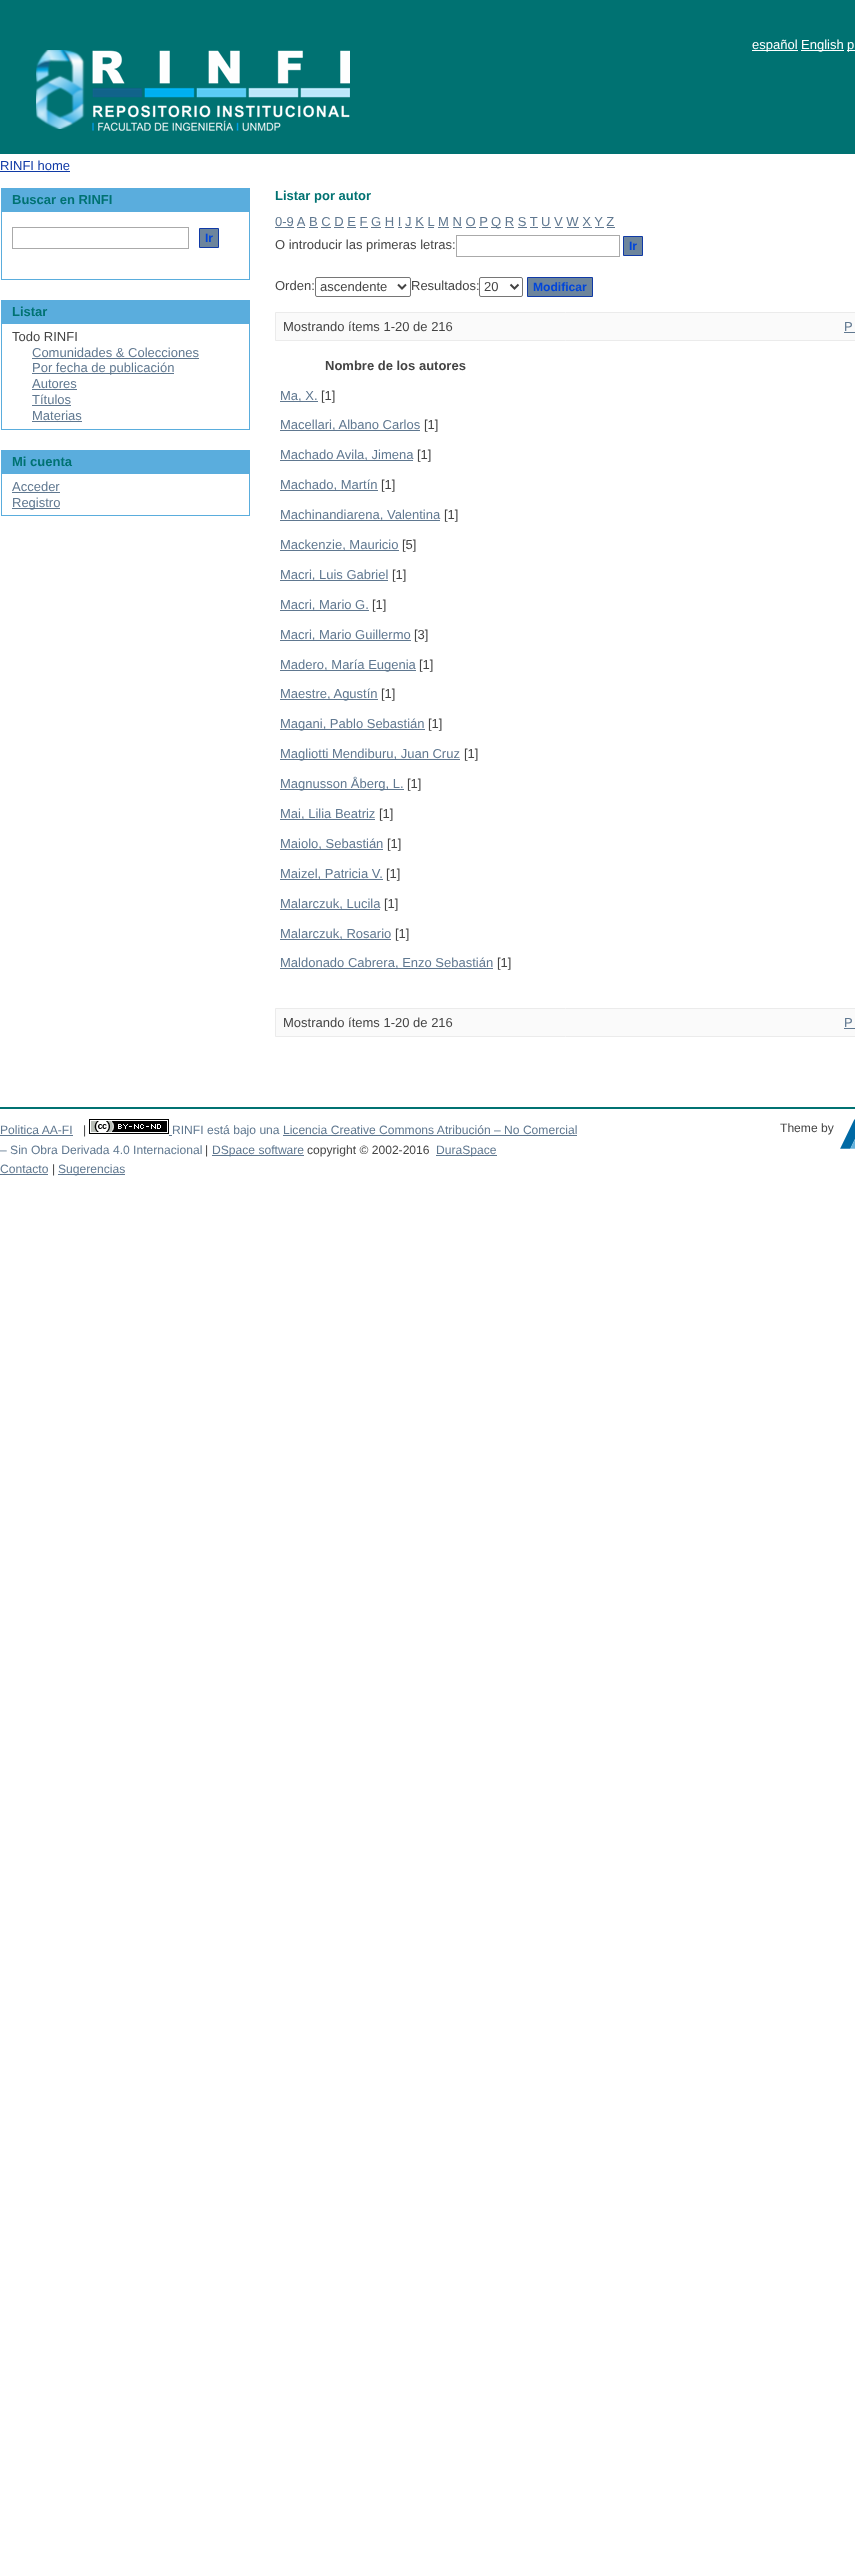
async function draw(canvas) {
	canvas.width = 855;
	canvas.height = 2560;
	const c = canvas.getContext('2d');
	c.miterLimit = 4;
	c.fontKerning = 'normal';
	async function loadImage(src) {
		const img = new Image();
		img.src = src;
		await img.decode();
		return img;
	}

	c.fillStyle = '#fff';
	c.fillRect(0, 0, 855, 2560);
	c.fillStyle = '#007272';
	c.fillRect(0, 0, 855, 154);
	c.fillStyle = '#fff';
	c.fillRect(752, 50, 46, 1);
	c.font = '13px Liberation Sans';
	c.fillText('español', 752, 49);
	c.fillRect(801, 50, 43, 1);
	c.fillText('English', 801, 49);
	c.fillRect(847, 50, 8, 1);
	c.fillText('p', 847, 49);
	c.drawImage(await loadImage('img1.png'), 36, 50, 314, 81);
	c.fillStyle = '#103aa6';
	c.fillText('RINFI home', 0, 170);
	c.fillRect(0, 171, 70, 1);
	c.fillStyle = '#5aaddd';
	c.fillRect(1, 188, 249, 24);
	c.font = 'bold 13px Liberation Sans';
	c.fillStyle = '#007272';
	c.fillText('Buscar en RINFI', 12, 204);
	for (const [x, y, w, h, color] of [
		[249, 212, 1, 68, '#5aaddd'],
		[1, 279, 249, 1, '#5aaddd'],
		[1, 212, 1, 68, '#5aaddd'],
	]) {
		c.fillStyle = color;
		c.fillRect(x, y, w, h);
	}
	c.strokeStyle = '#aaa';
	c.strokeRect(12.5, 227.5, 176, 21);
	c.fillStyle = '#6d859c';
	c.beginPath();
	c.rect(199.5, 228.5, 19, 19);
	c.fill();
	c.strokeStyle = '#103aa6';
	c.stroke();
	c.font = 'bold 12.1px Liberation Sans';
	c.fillStyle = '#0045db';
	c.fillText('Ir', 205, 242);
	c.fillStyle = '#5aaddd';
	c.fillRect(1, 300, 249, 24);
	c.font = 'bold 13px Liberation Sans';
	c.fillStyle = '#007272';
	c.fillText('Listar', 12, 316);
	for (const [x, y, w, h, color] of [
		[249, 324, 1, 106, '#5aaddd'],
		[1, 429, 249, 1, '#5aaddd'],
		[1, 324, 1, 106, '#5aaddd'],
	]) {
		c.fillStyle = color;
		c.fillRect(x, y, w, h);
	}
	c.font = '13px Liberation Sans';
	c.fillStyle = '#444';
	c.fillText('Todo RINFI', 12, 341);
	c.fillStyle = '#607890';
	c.fillText('Comunidades & Colecciones', 32, 357);
	c.fillRect(32, 358, 167, 1);
	c.fillRect(32, 373, 142, 1);
	c.fillText('Por fecha de publicación', 32, 372);
	c.fillText('Autores', 32, 388);
	c.fillRect(32, 389, 45, 1);
	c.fillText('Títulos', 32, 404);
	c.fillRect(32, 405, 39, 1);
	c.fillText('Materias', 32, 420);
	c.fillRect(32, 421, 50, 1);
	c.fillStyle = '#5aaddd';
	c.fillRect(1, 450, 249, 24);
	c.font = 'bold 13px Liberation Sans';
	c.fillStyle = '#007272';
	c.fillText('Mi cuenta', 12, 466);
	for (const [x, y, w, h, color] of [
		[249, 474, 1, 42, '#5aaddd'],
		[1, 515, 249, 1, '#5aaddd'],
		[1, 474, 1, 42, '#5aaddd'],
	]) {
		c.fillStyle = color;
		c.fillRect(x, y, w, h);
	}
	c.font = '13px Liberation Sans';
	c.fillStyle = '#607890';
	c.fillText('Acceder', 12, 491);
	c.fillRect(12, 492, 48, 1);
	c.fillRect(12, 508, 48, 1);
	c.fillText('Registro', 12, 507);
	c.font = 'bold 13px Liberation Sans';
	c.fillStyle = '#007272';
	c.fillText('Listar por autor', 275, 200);
	c.font = '13px Liberation Sans';
	c.fillStyle = '#607890';
	c.fillText('0-9 A', 275, 226);
	c.fillRect(275, 227, 19, 1);
	c.fillText('B C D E F G H I J K L', 309, 226);
	c.fillRect(309, 227, 9, 1);
	c.fillText('M N O P', 438, 226);
	c.fillRect(438, 227, 11, 1);
	c.fillRect(491, 227, 10, 1);
	c.fillText('Q R S T U V W X Y Z', 491, 226);
	for (const [x, y, w, h, color] of [
		[297, 227, 8, 1, '#607890'],
		[321, 227, 10, 1, '#607890'],
		[334, 227, 10, 1, '#607890'],
		[347, 227, 9, 1, '#607890'],
		[360, 227, 8, 1, '#607890'],
		[371, 227, 10, 1, '#607890'],
		[385, 227, 9, 1, '#607890'],
		[398, 227, 4, 1, '#607890'],
		[405, 227, 7, 1, '#607890'],
		[415, 227, 9, 1, '#607890'],
		[428, 227, 6, 1, '#607890'],
		[453, 227, 9, 1, '#607890'],
		[466, 227, 10, 1, '#607890'],
		[479, 227, 9, 1, '#607890'],
		[505, 227, 9, 1, '#607890'],
		[518, 227, 9, 1, '#607890'],
		[530, 227, 8, 1, '#607890'],
		[542, 227, 9, 1, '#607890'],
		[555, 227, 8, 1, '#607890'],
		[567, 227, 12, 1, '#607890'],
		[583, 227, 9, 1, '#607890'],
		[595, 227, 9, 1, '#607890'],
		[607, 227, 8, 1, '#607890'],
	]) {
		c.fillStyle = color;
		c.fillRect(x, y, w, h);
	}
	c.fillStyle = '#444';
	c.fillText('O introducir las primeras letras:', 275, 249);
	c.strokeStyle = '#aaa';
	c.strokeRect(456.5, 235.5, 163, 21);
	c.fillStyle = '#6d859c';
	c.beginPath();
	c.rect(623.5, 236.5, 19, 19);
	c.fill();
	c.strokeStyle = '#103aa6';
	c.stroke();
	c.font = 'bold 12.1px Liberation Sans';
	c.fillStyle = '#0045db';
	c.fillText('Ir', 629, 250);
	c.font = '13px Liberation Sans';
	c.fillStyle = '#444';
	c.fillText('Orden:', 275, 290);
	c.beginPath();
	c.roundRect(315.5, 277.5, 95, 19, 1.5);
	c.strokeStyle = '#767676';
	c.stroke();
	c.beginPath();
	c.moveTo(398, 284.5);
	c.lineTo(402, 288.5);
	c.lineTo(406, 284.5);
	c.strokeStyle = '#444';
	c.lineWidth = 2;
	c.stroke();
	c.fillText('ascendente', 320, 291);
	c.fillText('Resultados:', 411, 290);
	c.beginPath();
	c.roundRect(479.5, 277.5, 43, 19, 1.5);
	c.strokeStyle = '#767676';
	c.lineWidth = 1;
	c.stroke();
	c.beginPath();
	c.moveTo(510.5, 284.5);
	c.lineTo(514.5, 288.5);
	c.lineTo(518.5, 284.5);
	c.strokeStyle = '#444';
	c.lineWidth = 2;
	c.stroke();
	c.fillText('20', 484, 291);
	c.fillStyle = '#6d859c';
	c.beginPath();
	c.rect(527.5, 277.5, 65, 19);
	c.fill();
	c.strokeStyle = '#103aa6';
	c.lineWidth = 1;
	c.stroke();
	c.font = 'bold 12.1px Liberation Sans';
	c.fillStyle = '#0045db';
	c.fillText('Modificar', 533, 291);
	c.fillStyle = '#fafafa';
	c.beginPath();
	c.rect(275.5, 312.5, 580, 28);
	c.fill();
	c.strokeStyle = '#ebebeb';
	c.stroke();
	c.font = '13px Liberation Sans';
	c.fillStyle = '#444';
	c.fillText('Mostrando ítems 1-20 de 216', 283, 331);
	c.fillStyle = '#607890';
	c.fillText('P', 844, 331);
	c.fillRect(844, 332, 11, 1);
	c.font = 'bold 13px Liberation Sans';
	c.fillStyle = '#444';
	c.fillText('Nombre de los autores', 325, 370);
	c.fillStyle = '#607890';
	c.fillRect(280, 401, 38, 1);
	c.font = '13px Liberation Sans';
	c.fillText('Ma, X.', 280, 400);
	c.fillStyle = '#444';
	c.fillText('[1]', 321, 400);
	c.fillStyle = '#607890';
	c.fillRect(280, 430, 140, 1);
	c.fillText('Macellari, Albano Carlos', 280, 429);
	c.fillStyle = '#444';
	c.fillText('[1]', 424, 429);
	c.fillStyle = '#607890';
	c.fillRect(280, 460, 133, 1);
	c.fillText('Machado Avila, Jimena', 280, 459);
	c.fillStyle = '#444';
	c.fillText('[1]', 417, 459);
	c.fillStyle = '#607890';
	c.fillRect(280, 490, 98, 1);
	c.fillText('Machado, Martín', 280, 489);
	c.fillStyle = '#444';
	c.fillText('[1]', 381, 489);
	c.fillStyle = '#607890';
	c.fillRect(280, 520, 160, 1);
	c.fillText('Machinandiarena, Valentina', 280, 519);
	c.fillStyle = '#444';
	c.fillText('[1]', 444, 519);
	c.fillStyle = '#607890';
	c.fillRect(280, 550, 119, 1);
	c.fillText('Mackenzie, Mauricio', 280, 549);
	c.fillStyle = '#444';
	c.fillText('[5]', 402, 549);
	c.fillStyle = '#607890';
	c.fillRect(280, 580, 108, 1);
	c.fillText('Macri, Luis Gabriel', 280, 579);
	c.fillStyle = '#444';
	c.fillText('[1]', 392, 579);
	c.fillStyle = '#607890';
	c.fillRect(280, 610, 89, 1);
	c.fillText('Macri, Mario G.', 280, 609);
	c.fillStyle = '#444';
	c.fillText('[1]', 372, 609);
	c.fillStyle = '#607890';
	c.fillRect(280, 640, 131, 1);
	c.fillText('Macri, Mario Guillermo', 280, 639);
	c.fillStyle = '#444';
	c.fillText('[3]', 414, 639);
	c.fillStyle = '#607890';
	c.fillRect(280, 670, 136, 1);
	c.fillText('Madero, María Eugenia', 280, 669);
	c.fillStyle = '#444';
	c.fillText('[1]', 419, 669);
	c.fillStyle = '#607890';
	c.fillRect(280, 699, 98, 1);
	c.fillText('Maestre, Agustín', 280, 698);
	c.fillStyle = '#444';
	c.fillText('[1]', 381, 698);
	c.fillStyle = '#607890';
	c.fillRect(280, 729, 145, 1);
	c.fillText('Magani, Pablo Sebastián', 280, 728);
	c.fillStyle = '#444';
	c.fillText('[1]', 428, 728);
	c.fillStyle = '#607890';
	c.fillRect(280, 759, 180, 1);
	c.fillText('Magliotti Mendiburu, Juan Cruz', 280, 758);
	c.fillStyle = '#444';
	c.fillText('[1]', 464, 758);
	c.fillStyle = '#607890';
	c.fillRect(280, 789, 124, 1);
	c.fillText('Magnusson Åberg, L.', 280, 788);
	c.fillStyle = '#444';
	c.fillText('[1]', 407, 788);
	c.fillStyle = '#607890';
	c.fillRect(280, 819, 95, 1);
	c.fillText('Mai, Lilia Beatriz', 280, 818);
	c.fillStyle = '#444';
	c.fillText('[1]', 379, 818);
	c.fillStyle = '#607890';
	c.fillRect(280, 849, 103, 1);
	c.fillText('Maiolo, Sebastián', 280, 848);
	c.fillStyle = '#444';
	c.fillText('[1]', 387, 848);
	c.fillStyle = '#607890';
	c.fillRect(280, 879, 103, 1);
	c.fillText('Maizel, Patricia V.', 280, 878);
	c.fillStyle = '#444';
	c.fillText('[1]', 386, 878);
	c.fillStyle = '#607890';
	c.fillRect(280, 909, 100, 1);
	c.fillText('Malarczuk, Lucila', 280, 908);
	c.fillStyle = '#444';
	c.fillText('[1]', 384, 908);
	c.fillStyle = '#607890';
	c.fillRect(280, 939, 111, 1);
	c.fillText('Malarczuk, Rosario', 280, 938);
	c.fillStyle = '#444';
	c.fillText('[1]', 395, 938);
	c.fillStyle = '#607890';
	c.fillRect(280, 968, 213, 1);
	c.fillText('Maldonado Cabrera, Enzo Sebastián', 280, 967);
	c.fillStyle = '#444';
	c.fillText('[1]', 497, 967);
	c.fillStyle = '#fafafa';
	c.beginPath();
	c.rect(275.5, 1008.5, 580, 28);
	c.fill();
	c.stroke();
	c.fillStyle = '#444';
	c.fillText('Mostrando ítems 1-20 de 216', 283, 1027);
	c.fillStyle = '#607890';
	c.fillText('P', 844, 1027);
	c.fillRect(844, 1028, 11, 1);
	c.fillStyle = '#007272';
	c.fillRect(0, 1107, 855, 2);
	c.font = '12.1px Liberation Sans';
	c.fillStyle = '#607890';
	c.fillText('Politica AA-FI', 0, 1134);
	c.fillRect(0, 1135, 73, 1);
	c.fillStyle = '#444';
	c.fillText('|', 83, 1134);
	c.drawImage(await loadImage('img2.png'), 89, 1119, 80, 15);
	c.fillStyle = '#607890';
	c.fillRect(169, 1135, 3, 1);
	c.fillText('RINFI está bajo una Licencia Creative Commons Atribución – No Comercial', 172, 1134);
	c.fillRect(283, 1135, 294, 1);
	c.fillText('– Sin Obra Derivada 4.0 Internacional', 0, 1154);
	c.fillStyle = '#444';
	c.fillText('|', 205, 1154);
	c.fillStyle = '#607890';
	c.fillRect(212, 1155, 92, 1);
	c.fillText('DSpace software', 212, 1154);
	c.fillStyle = '#444';
	c.fillText('copyright © 2002-2016', 307, 1154);
	c.fillStyle = '#607890';
	c.fillRect(436, 1155, 61, 1);
	c.fillText('DuraSpace', 436, 1154);
	c.fillStyle = '#444';
	c.fillText('Theme by', 780, 1132);
	c.drawImage(await loadImage('img3.png'), 840, 1119, 15, 30);
	c.fillStyle = '#607890';
	c.fillText('Contacto', 0, 1173);
	c.fillRect(0, 1174, 48, 1);
	c.fillStyle = '#444';
	c.fillText('|', 52, 1173);
	c.fillStyle = '#607890';
	c.fillRect(58, 1174, 67, 1);
	c.fillText('Sugerencias', 58, 1173);
}

draw(document.querySelector('canvas'));
